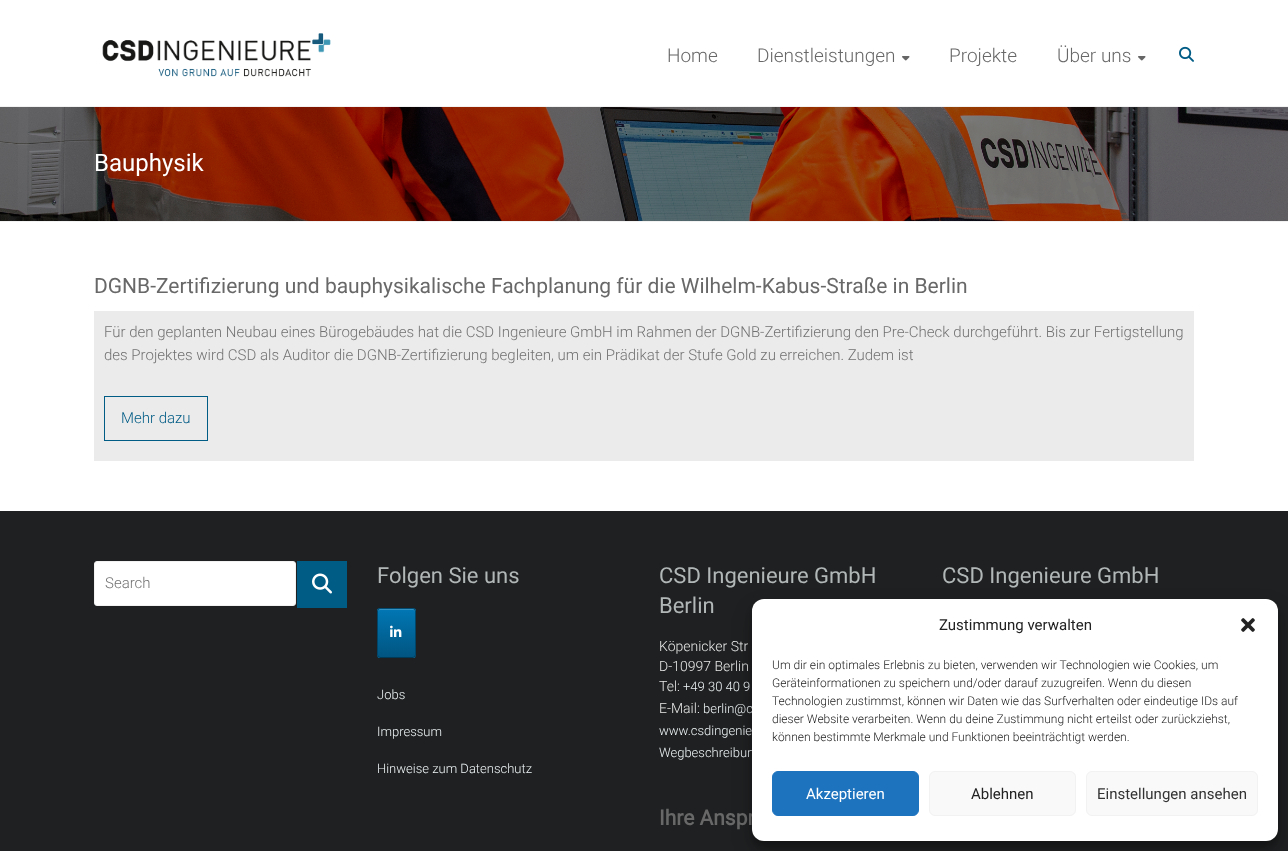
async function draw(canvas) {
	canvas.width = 1288;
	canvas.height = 851;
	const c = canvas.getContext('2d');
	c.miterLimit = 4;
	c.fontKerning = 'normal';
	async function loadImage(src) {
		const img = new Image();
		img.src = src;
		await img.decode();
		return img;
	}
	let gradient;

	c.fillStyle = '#fff';
	c.fillRect(0, 0, 1288, 851);
	c.fillStyle = '#f2f2f2';
	c.fillRect(0, 106, 1288, 1);
	c.drawImage(await loadImage('img1.png'), 102, 33, 229, 44);
	c.font = '300 19px Roboto';
	c.fillStyle = '#686868';
	c.fillText('Home', 667, 62);
	c.fillText('Dienstleistungen', 757, 62);
	c.drawImage(await loadImage('img2.png'), 902, 56, 8, 5);
	c.fillText('Projekte', 949, 62);
	c.fillText('Über uns', 1057, 62);
	c.drawImage(await loadImage('img2.png'), 1138, 56, 8, 5);
	c.drawImage(await loadImage('img3.png'), 1179, 46, 15, 16);
	c.drawImage(await loadImage('img4.png'), 0, 107, 1288, 114);
	c.fillStyle = '#f2f2f2';
	c.fillRect(0, 221, 1288, 1);
	c.font = '24px Roboto';
	c.fillStyle = '#fff';
	c.fillText('Bauphysik', 94, 171);
	c.font = '21px Roboto';
	c.fillStyle = '#686868';
	c.fillText('DGNB-Zertifizierung und bauphysikalische Fachplanung für die Wilhelm-Kabus-Straße in Berlin', 94, 293);
	c.fillStyle = '#ebebeb';
	c.fillRect(94, 311, 1100, 150);
	c.font = '300 15px Roboto';
	c.fillStyle = '#727272';
	c.fillText('Für den geplanten Neubau eines Bürogebäudes hat die CSD Ingenieure GmbH im Rahmen der DGNB-Zertifizierung den Pre-Check durchgeführt. Bis zur Fertigstellung', 104, 337);
	c.fillText('des Projektes wird CSD als Auditor die DGNB-Zertifizierung begleiten, um ein Prädikat der Stufe Gold zu erreichen. Zudem ist', 104, 360);
	c.strokeStyle = '#005b85';
	c.strokeRect(104.5, 396.5, 103, 44);
	c.fillStyle = '#005b85';
	c.fillText('Mehr dazu', 121, 423);
	c.fillStyle = '#1f2021';
	c.fillRect(0, 511, 1288, 340);
	c.fillStyle = '#fff';
	c.beginPath();
	c.roundRect(94.5, 561.5, 201, 44, 2.5);
	c.fill();
	c.strokeStyle = '#f2f2f2';
	c.stroke();
	c.fillStyle = '#727272';
	c.fillText('Search', 105, 588);
	c.fillStyle = '#005b85';
	c.fillRect(297, 561, 50, 47);
	c.drawImage(await loadImage('img5.png'), 312, 573, 20, 21);
	c.font = '22px Roboto';
	c.fillStyle = '#b1b6b6';
	c.fillText('Folgen Sie uns', 377, 583);
	c.save();
	c.beginPath();
	c.roundRect(377, 608, 39, 50, 3);
	c.clip();
	gradient = c.createLinearGradient(378, 609, 378, 561);
	gradient.addColorStop(0, '#015581');
	gradient.addColorStop(1, '#0177b4');
	c.fillStyle = gradient;
	c.fillRect(377, 608, 39, 1);
	gradient = c.createLinearGradient(378, 657, 378, 609);
	gradient.addColorStop(0, '#015581');
	gradient.addColorStop(1, '#0177b4');
	c.fillStyle = gradient;
	c.fillRect(377, 609, 39, 48);
	gradient = c.createLinearGradient(378, 705, 378, 657);
	gradient.addColorStop(0, '#015581');
	gradient.addColorStop(1, '#0177b4');
	c.fillStyle = gradient;
	c.fillRect(377, 657, 39, 1);
	c.restore();
	c.fillStyle = '#3492c2';
	c.beginPath();
	c.moveTo(380, 610);
	c.lineTo(413, 610);
	c.bezierCurveTo(414, 610, 415, 611, 415, 612);
	c.bezierCurveTo(415, 607.5, 411.5, 609, 407.5, 609);
	c.lineTo(385.5, 609);
	c.bezierCurveTo(381.5, 609, 378, 607.5, 378, 612);
	c.bezierCurveTo(378, 611, 379, 610, 380, 610);
	c.closePath();
	c.fill();
	c.beginPath();
	c.moveTo(378.5, 609.5);
	c.bezierCurveTo(379, 609, 379.5, 608.5, 380, 608.5);
	c.lineTo(413, 608.5);
	c.bezierCurveTo(413.5, 608.5, 414, 609, 414.5, 609.5);
	c.strokeStyle = '#014b72';
	c.stroke();
	c.beginPath();
	c.moveTo(414.5, 609.5);
	c.lineTo(415.5, 611);
	c.lineTo(415.5, 655);
	c.lineTo(414.5, 656.5);
	c.strokeStyle = '#014568';
	c.stroke();
	c.beginPath();
	c.moveTo(414.5, 656.5);
	c.bezierCurveTo(414, 657, 413.5, 657.5, 413, 657.5);
	c.lineTo(380, 657.5);
	c.bezierCurveTo(379.5, 657.5, 379, 657, 378.5, 656.5);
	c.strokeStyle = '#003b59';
	c.stroke();
	c.beginPath();
	c.moveTo(378.5, 656.5);
	c.lineTo(377.5, 655);
	c.lineTo(377.5, 611);
	c.lineTo(378.5, 609.5);
	c.strokeStyle = '#014568';
	c.stroke();
	c.drawImage(await loadImage('img6.png'), 390, 625, 12, 12);
	c.font = '300 13px Roboto';
	c.fillStyle = '#eff5f7';
	for (const [text, x, y] of [
		['Jobs', 377, 699],
		['Impressum', 377, 736],
		['Hinweise zum Datenschutz', 377, 773],
	]) {
		c.fillText(text, x, y);
	}
	c.font = '22px Roboto';
	c.fillStyle = '#b1b6b6';
	c.fillText('CSD Ingenieure GmbH', 659, 583);
	c.fillText('Berlin', 659, 613);
	c.font = '300 14px Roboto';
	c.fillStyle = '#e8e8e8';
	for (const [text, x, y] of [
		['Köpenicker Str', 659, 651],
		['D-10997 Berlin', 659, 671],
		['Tel:', 659, 691],
	]) {
		c.fillText(text, x, y);
	}
	c.font = '300 13px Roboto';
	c.fillStyle = '#eff5f7';
	c.fillText('+49 30 40 9', 683, 691);
	c.font = '300 14px Roboto';
	c.fillStyle = '#e8e8e8';
	c.fillText('E-Mail:', 659, 713);
	c.font = '300 13px Roboto';
	c.fillStyle = '#eff5f7';
	for (const [text, x, y] of [
		['berlin@c', 703, 713],
		['www.csdingenie', 659, 735],
		['Wegbeschreibun', 659, 757],
	]) {
		c.fillText(text, x, y);
	}
	c.font = 'bold 21px Roboto';
	c.fillStyle = '#686868';
	c.fillText('Ihre Anspr', 659, 825);
	c.font = '22px Roboto';
	c.fillStyle = '#b1b6b6';
	c.fillText('CSD Ingenieure GmbH', 942, 583);
	c.fillStyle = '#0000003b';
	c.filter = 'blur(3px)';
	c.beginPath();
	c.roundRect(752, 605, 526, 242, 12);
	c.fill();
	c.filter = 'none';
	c.fillStyle = '#00000030';
	c.filter = 'blur(10px)';
	c.beginPath();
	c.roundRect(752, 609, 526, 242, 12);
	c.fill();
	c.filter = 'none';
	c.fillStyle = '#fff';
	c.beginPath();
	c.roundRect(752, 599, 526, 242, 12);
	c.fill();
	c.font = '15px Roboto';
	c.fillStyle = '#222';
	c.fillText('Zustimmung verwalten', 939, 630);
	c.drawImage(await loadImage('img7.png'), 1241, 618, 14, 14);
	c.font = '300 12px Roboto';
	for (const [text, x, y] of [
		['Um dir ein optimales Erlebnis zu bieten, verwenden wir Technologien wie Cookies, um', 772, 669],
		['Geräteinformationen zu speichern und/oder darauf zuzugreifen. Wenn du diesen', 772, 687],
		['Technologien zustimmst, können wir Daten wie das Surfverhalten oder eindeutige IDs auf', 772, 705],
		['dieser Website verarbeiten. Wenn du deine Zustimmung nicht erteilst oder zurückziehst,', 772, 723],
		['können bestimmte Merkmale und Funktionen beeinträchtigt werden.', 772, 741],
	]) {
		c.fillText(text, x, y);
	}
	c.fillStyle = '#1e73be';
	c.beginPath();
	c.roundRect(772.5, 771.5, 146, 44, 5.5);
	c.fill();
	c.strokeStyle = '#1e73be';
	c.stroke();
	c.font = '15px Roboto';
	c.fillStyle = '#fff';
	c.fillText('Akzeptieren', 806, 799);
	c.fillStyle = '#f9f9f9';
	c.beginPath();
	c.roundRect(929.5, 771.5, 146, 44, 5.5);
	c.fill();
	c.strokeStyle = '#f2f2f2';
	c.stroke();
	c.fillStyle = '#222';
	c.fillText('Ablehnen', 971, 799);
	c.fillStyle = '#f9f9f9';
	c.beginPath();
	c.roundRect(1086.5, 771.5, 171, 44, 5.5);
	c.fill();
	c.stroke();
	c.fillStyle = '#333';
	c.fillText('Einstellungen ansehen', 1097, 799);
}

draw(document.querySelector('canvas'));
